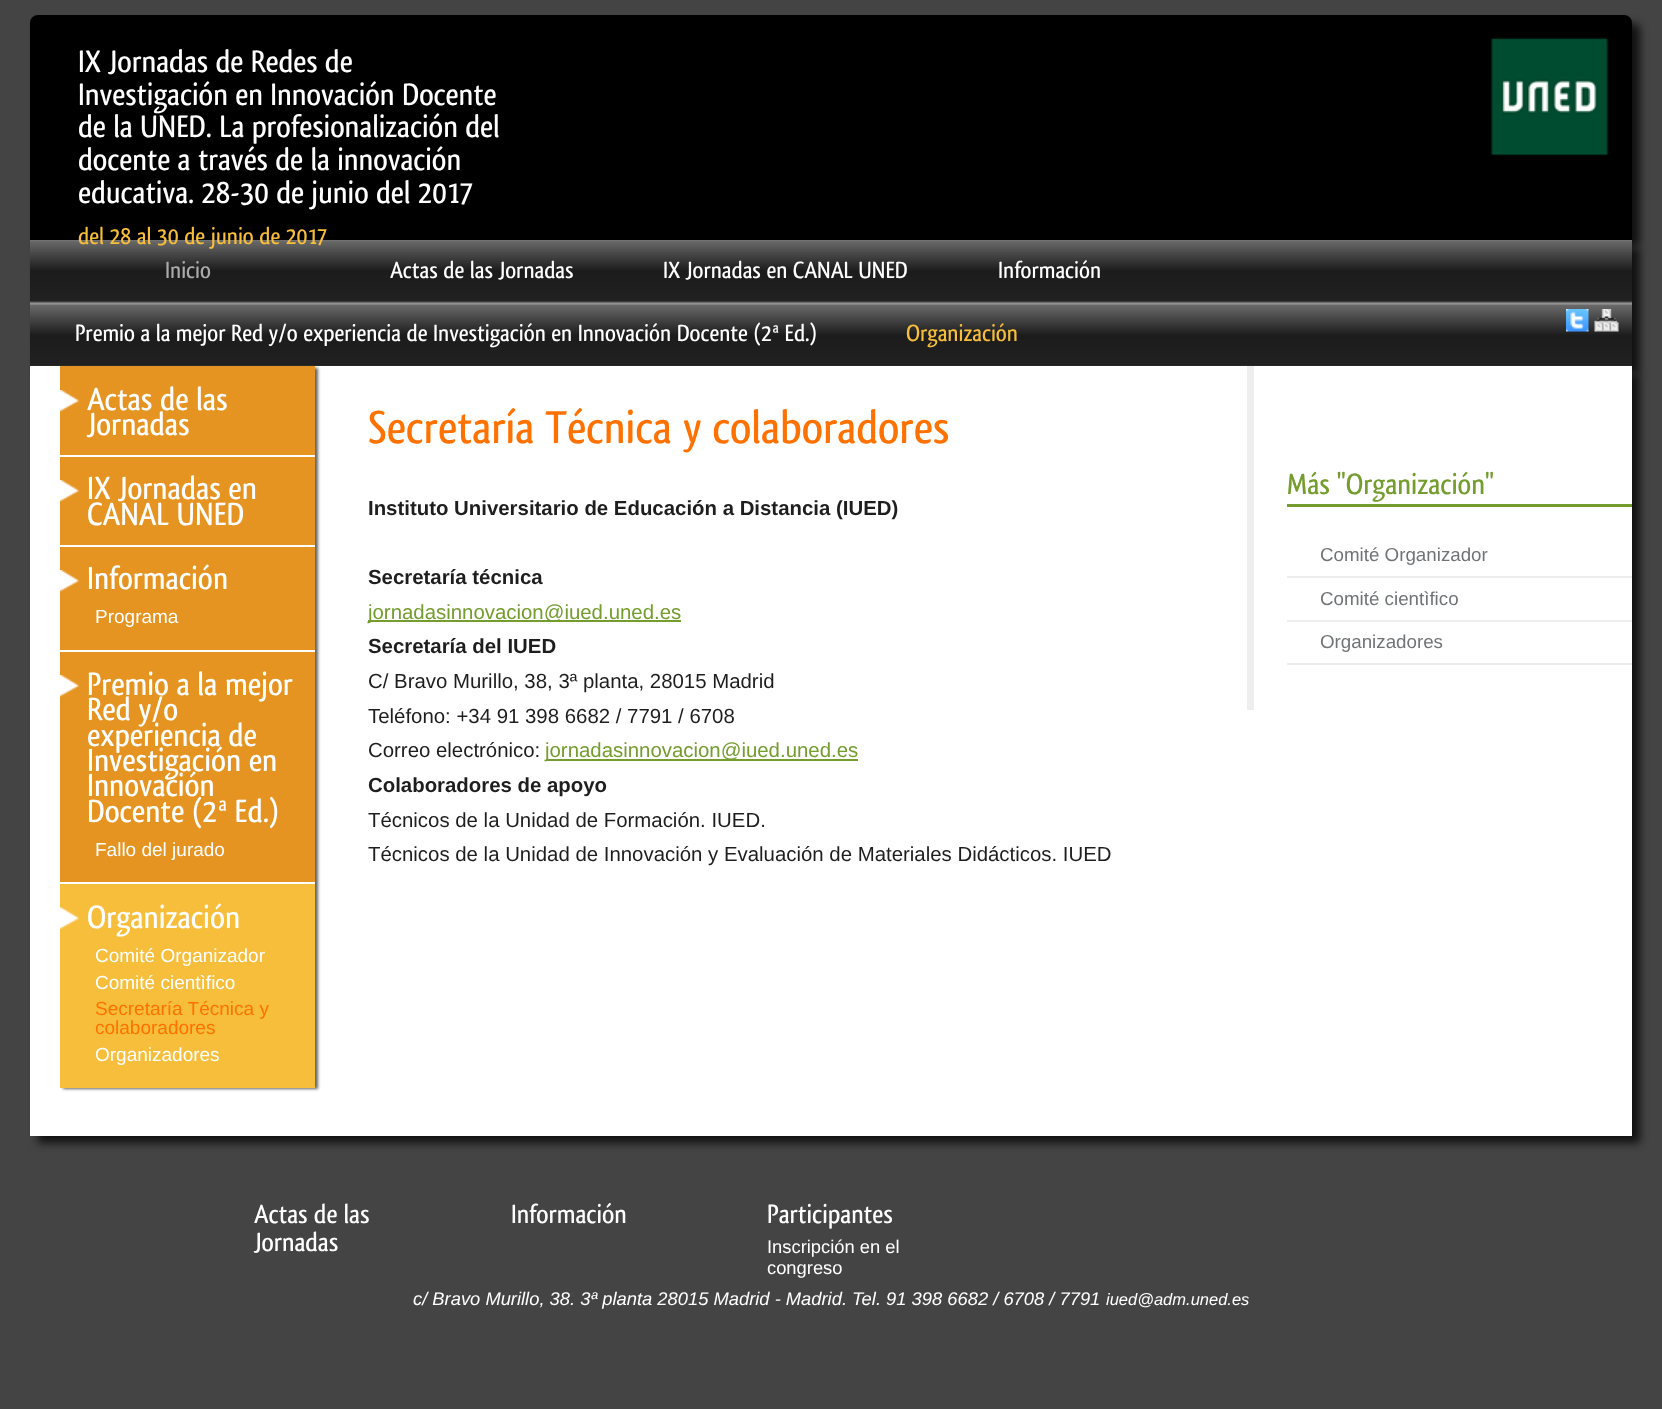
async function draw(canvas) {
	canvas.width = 1662;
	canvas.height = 1409;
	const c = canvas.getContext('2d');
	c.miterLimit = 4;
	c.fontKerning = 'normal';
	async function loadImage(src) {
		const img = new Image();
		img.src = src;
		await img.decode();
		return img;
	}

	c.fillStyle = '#444';
	c.fillRect(0, 0, 1662, 1409);
	c.fillStyle = '#111';
	c.filter = 'blur(4px)';
	c.beginPath();
	c.roundRect(38, 23, 1602, 225, 8);
	c.fill();
	c.filter = 'none';
	c.fillStyle = '#000';
	c.beginPath();
	c.roundRect(30, 15, 1602, 225, [8, 8, 0, 0]);
	c.fill();
	c.font = '500 32.6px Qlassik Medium';
	c.fillStyle = '#fff';
	for (const [text, x, y] of [
		['IX Jornadas de Redes de', 78, 72],
		['Investigación en Innovación Docente', 78, 105],
		['de la UNED. La profesionalización del', 78, 137],
		['docente a través de la innovación', 78, 170],
		['educativa. 28-30 de junio del 2017', 78, 203],
	]) {
		c.fillText(text, x, y);
	}
	c.fillStyle = '#111';
	c.filter = 'blur(4px)';
	c.beginPath();
	c.rect(38, 248, 1602, 126);
	c.fill();
	c.filter = 'none';
	c.fillStyle = '#222';
	c.fillRect(30, 240, 1602, 126);
	c.drawImage(await loadImage('img4.png'), 30, 240, 1602, 126);
	c.font = '500 24.5px Qlassik Medium';
	c.fillStyle = '#f7be3b';
	c.fillText('del 28 al 30 de junio de 2017', 78, 244);
	c.drawImage(await loadImage('img1.png'), 1490, 37, 119, 119);
	c.drawImage(await loadImage('img2.png'), 1566, 309, 23, 23);
	c.drawImage(await loadImage('img3.png'), 1594, 309, 25, 23);
	c.fillStyle = '#aaa';
	c.fillText('Inicio', 165, 278);
	c.fillStyle = '#fff';
	for (const [text, x, y] of [
		['Actas de las Jornadas', 390, 278],
		['IX Jornadas en CANAL UNED', 663, 278],
		['Información', 998, 278],
		['Premio a la mejor Red y/o experiencia de Investigación en Innovación Docente (2ª Ed.)', 75, 341],
	]) {
		c.fillText(text, x, y);
	}
	c.fillStyle = '#f7be3b';
	c.fillText('Organización', 906, 341);
	c.fillStyle = '#111';
	c.filter = 'blur(4px)';
	c.beginPath();
	c.rect(38, 374, 1602, 769);
	c.fill();
	c.filter = 'none';
	c.fillStyle = '#fff';
	c.fillRect(30, 366, 1602, 770);
	c.fillStyle = '#666';
	c.filter = 'blur(1.5px)';
	c.beginPath();
	c.rect(63, 368, 255, 721);
	c.fill();
	c.filter = 'none';
	c.fillStyle = '#e59422';
	c.fillRect(60, 366, 255, 516);
	c.drawImage(await loadImage('img5.png'), 60, 390, 20, 22);
	c.font = '500 33.5px Qlassik Medium';
	c.fillStyle = '#fff';
	c.fillText('Actas de las', 87, 410);
	c.fillText('Jornadas', 87, 435);
	c.drawImage(await loadImage('img5.png'), 60, 480, 20, 22);
	c.fillRect(60, 455, 255, 2);
	c.fillText('IX Jornadas en', 87, 499);
	c.fillText('CANAL UNED', 87, 525);
	c.drawImage(await loadImage('img5.png'), 60, 570, 20, 22);
	c.fillRect(60, 545, 255, 2);
	c.fillText('Información', 87, 589);
	c.font = '19px Liberation Sans';
	c.fillText('Programa', 95, 623);
	c.drawImage(await loadImage('img5.png'), 60, 675, 20, 22);
	c.fillRect(60, 650, 255, 2);
	c.font = '500 33.5px Qlassik Medium';
	for (const [text, x, y] of [
		['Premio a la mejor', 87, 695],
		['Red y/o', 87, 720],
		['experiencia de', 87, 746],
		['Investigación en', 87, 771],
		['Innovación', 87, 796],
		['Docente (2ª Ed.)', 87, 822],
	]) {
		c.fillText(text, x, y);
	}
	c.font = '19px Liberation Sans';
	c.fillText('Fallo del jurado', 95, 856);
	c.fillStyle = '#f7be3b';
	c.fillRect(60, 884, 255, 204);
	c.drawImage(await loadImage('img6.png'), 60, 907, 20, 22);
	c.fillStyle = '#fff';
	c.fillRect(60, 882, 255, 2);
	c.font = '500 33.5px Qlassik Medium';
	c.fillText('Organización', 87, 928);
	c.font = '19px Liberation Sans';
	c.fillText('Comité Organizador', 95, 962);
	c.fillText('Comité cientìfico', 95, 989);
	c.fillStyle = '#ff7200';
	c.fillText('Secretaría Técnica y', 95, 1015);
	c.fillText('colaboradores', 95, 1034);
	c.fillStyle = '#fff';
	c.fillText('Organizadores', 95, 1061);
	c.font = '500 48px Qlassik Medium';
	c.fillStyle = '#ff7200';
	c.fillText('Secretaría Técnica y colaboradores', 368, 443);
	c.font = 'bold 20.4px Liberation Sans';
	c.fillStyle = '#1e1e1e';
	c.fillText('Instituto Universitario de Educación a Distancia (IUED)', 368, 515);
	c.fillText('Secretaría técnica', 368, 584);
	c.fillStyle = '#749c2f';
	c.fillRect(368, 620, 313, 2);
	c.font = '20.4px Liberation Sans';
	c.fillText('jornadasinnovacion@iued.uned.es', 368, 619);
	c.font = 'bold 20.4px Liberation Sans';
	c.fillStyle = '#1e1e1e';
	c.fillText('Secretaría del IUED', 368, 653);
	c.font = '20.4px Liberation Sans';
	for (const [text, x, y] of [
		['C/ Bravo Murillo, 38, 3ª planta, 28015 Madrid', 368, 688],
		['Teléfono: +34 91 398 6682 / 7791 / 6708', 368, 723],
		['Correo electrónico:', 368, 757],
	]) {
		c.fillText(text, x, y);
	}
	c.fillStyle = '#749c2f';
	c.fillRect(546, 759, 312, 2);
	c.fillText('jornadasinnovacion@iued.uned.es', 545, 757);
	c.font = 'bold 20.4px Liberation Sans';
	c.fillStyle = '#1e1e1e';
	c.fillText('Colaboradores de apoyo', 368, 792);
	c.font = '20.4px Liberation Sans';
	c.fillText('Técnicos de la Unidad de Formación. IUED.', 368, 827);
	c.fillText('Técnicos de la Unidad de Innovación y Evaluación de Materiales Didácticos. IUED', 368, 861);
	c.fillStyle = '#eee';
	c.fillRect(1247, 366, 7, 344);
	c.fillStyle = '#749c2f';
	c.fillRect(1287, 504, 345, 3);
	c.font = '500 30.5px Qlassik Medium';
	c.fillText('Más "Organización"', 1287, 494);
	c.fillStyle = '#eee';
	c.fillRect(1287, 576, 345, 2);
	c.font = '18.75px Liberation Sans';
	c.fillStyle = '#717476';
	c.fillText('Comité Organizador', 1320, 561);
	c.fillStyle = '#eee';
	c.fillRect(1287, 620, 345, 2);
	c.fillStyle = '#717476';
	c.fillText('Comité cientìfico', 1320, 605);
	c.fillStyle = '#eee';
	c.fillRect(1287, 663, 345, 2);
	c.fillStyle = '#717476';
	c.fillText('Organizadores', 1320, 648);
	c.font = '500 27.5px Qlassik Medium';
	c.fillStyle = '#fff';
	for (const [text, x, y] of [
		['Actas de las', 254, 1223],
		['Jornadas', 254, 1251],
		['Información', 511, 1223],
		['Participantes', 767, 1223],
	]) {
		c.fillText(text, x, y);
	}
	c.font = '18.35px Liberation Sans';
	c.fillText('Inscripción en el', 767, 1253);
	c.fillText('congreso', 767, 1274);
	c.font = 'italic 18.35px Liberation Sans';
	c.fillText('c/ Bravo Murillo, 38. 3ª planta 28015 Madrid - Madrid. Tel. 91 398 6682 / 6708 / 7791', 413, 1305);
	c.font = 'italic 16.5px Liberation Sans';
	c.fillText('iued@adm.uned.es', 1106, 1305);
}

draw(document.querySelector('canvas'));
